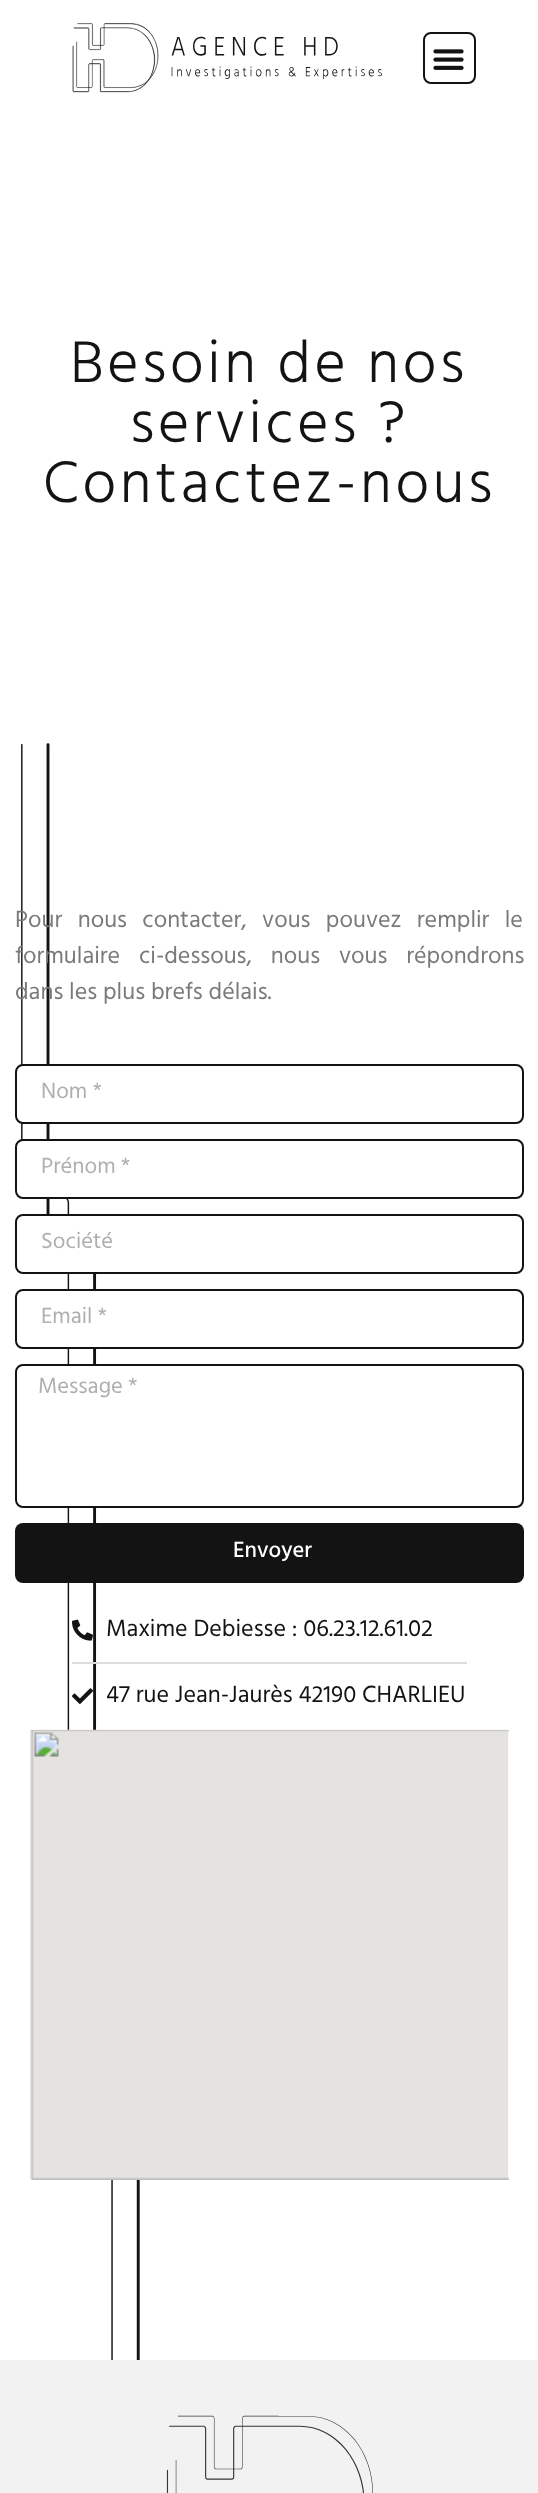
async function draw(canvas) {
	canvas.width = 538;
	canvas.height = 2493;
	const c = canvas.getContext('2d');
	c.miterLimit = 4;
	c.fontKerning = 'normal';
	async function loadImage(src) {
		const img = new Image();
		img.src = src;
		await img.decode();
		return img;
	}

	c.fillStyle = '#fff';
	c.fillRect(0, 0, 538, 2493);
	c.drawImage(await loadImage('img1.png'), 72, 23, 310, 70);
	c.beginPath();
	c.roundRect(424, 33, 51, 50, 7);
	c.strokeStyle = '#131313';
	c.lineWidth = 2;
	c.stroke();
	c.drawImage(await loadImage('img2.png'), 433, 49, 31, 21);
	c.letterSpacing = '3.6px';
	c.font = '300 60px Hind';
	c.fillStyle = '#131313';
	for (const [text, x, y] of [
		['Besoin de nos', 70, 382],
		['services ?', 130, 442],
		['Contactez-nous', 43, 502],
	]) {
		c.fillText(text, x, y);
	}
	c.drawImage(await loadImage('img3.png'), 21, 743, 119, 1617);
	c.letterSpacing = '0px';
	c.wordSpacing = '9.5px';
	c.font = '24px Hind';
	c.fillStyle = '#7a7a7a';
	c.fillText('Pour nous contacter, vous pouvez remplir le', 15, 927);
	c.wordSpacing = '13px';
	c.fillText('formulaire ci-dessous, nous vous répondrons', 15, 963);
	c.wordSpacing = '0px';
	c.fillText('dans les plus brefs délais.', 15, 999);
	c.fillStyle = '#fff';
	c.beginPath();
	c.roundRect(16, 1065, 507, 58, 7);
	c.fill();
	c.stroke();
	c.font = '22.5px Hind';
	c.fillStyle = '#afafaf';
	c.fillText('Nom *', 41, 1098);
	c.fillStyle = '#fff';
	c.beginPath();
	c.roundRect(16, 1140, 507, 58, 7);
	c.fill();
	c.stroke();
	c.fillStyle = '#afafaf';
	c.fillText('Prénom *', 41, 1173);
	c.fillStyle = '#fff';
	c.beginPath();
	c.roundRect(16, 1215, 507, 58, 7);
	c.fill();
	c.stroke();
	c.fillStyle = '#afafaf';
	c.fillText('Société', 41, 1248);
	c.fillStyle = '#fff';
	c.beginPath();
	c.roundRect(16, 1290, 507, 58, 7);
	c.fill();
	c.stroke();
	c.fillStyle = '#afafaf';
	c.fillText('Email *', 41, 1323);
	c.fillStyle = '#fff';
	c.beginPath();
	c.roundRect(16, 1365, 507, 142, 7);
	c.fill();
	c.stroke();
	c.fillStyle = '#afafaf';
	c.fillText('Message *', 38, 1393);
	c.fillStyle = '#131313';
	c.beginPath();
	c.roundRect(15, 1523, 509, 60, 8);
	c.fill();
	c.font = '500 22.5px Hind';
	c.fillStyle = '#fff';
	c.fillText('Envoyer', 233, 1557);
	c.drawImage(await loadImage('img4.png'), 72, 1619, 21, 22);
	c.font = '24px Hind';
	c.fillStyle = '#131313';
	c.fillText('Maxime Debiesse : 06.23.12.61.02', 106, 1636);
	c.fillStyle = '#ddd';
	c.fillRect(72, 1662, 395, 2);
	c.drawImage(await loadImage('img5.png'), 72, 1688, 21, 16);
	c.fillStyle = '#131313';
	c.fillText('47 rue Jean-Jaurès 42190 CHARLIEU', 106, 1702);
	c.drawImage(await loadImage('img6.png'), 30, 1729, 479, 451);
	c.fillStyle = '#f2f2f2';
	c.fillRect(0, 2360, 538, 133);
	c.drawImage(await loadImage('img7.png'), 166, 2415, 207, 78);
}

draw(document.querySelector('canvas'));
